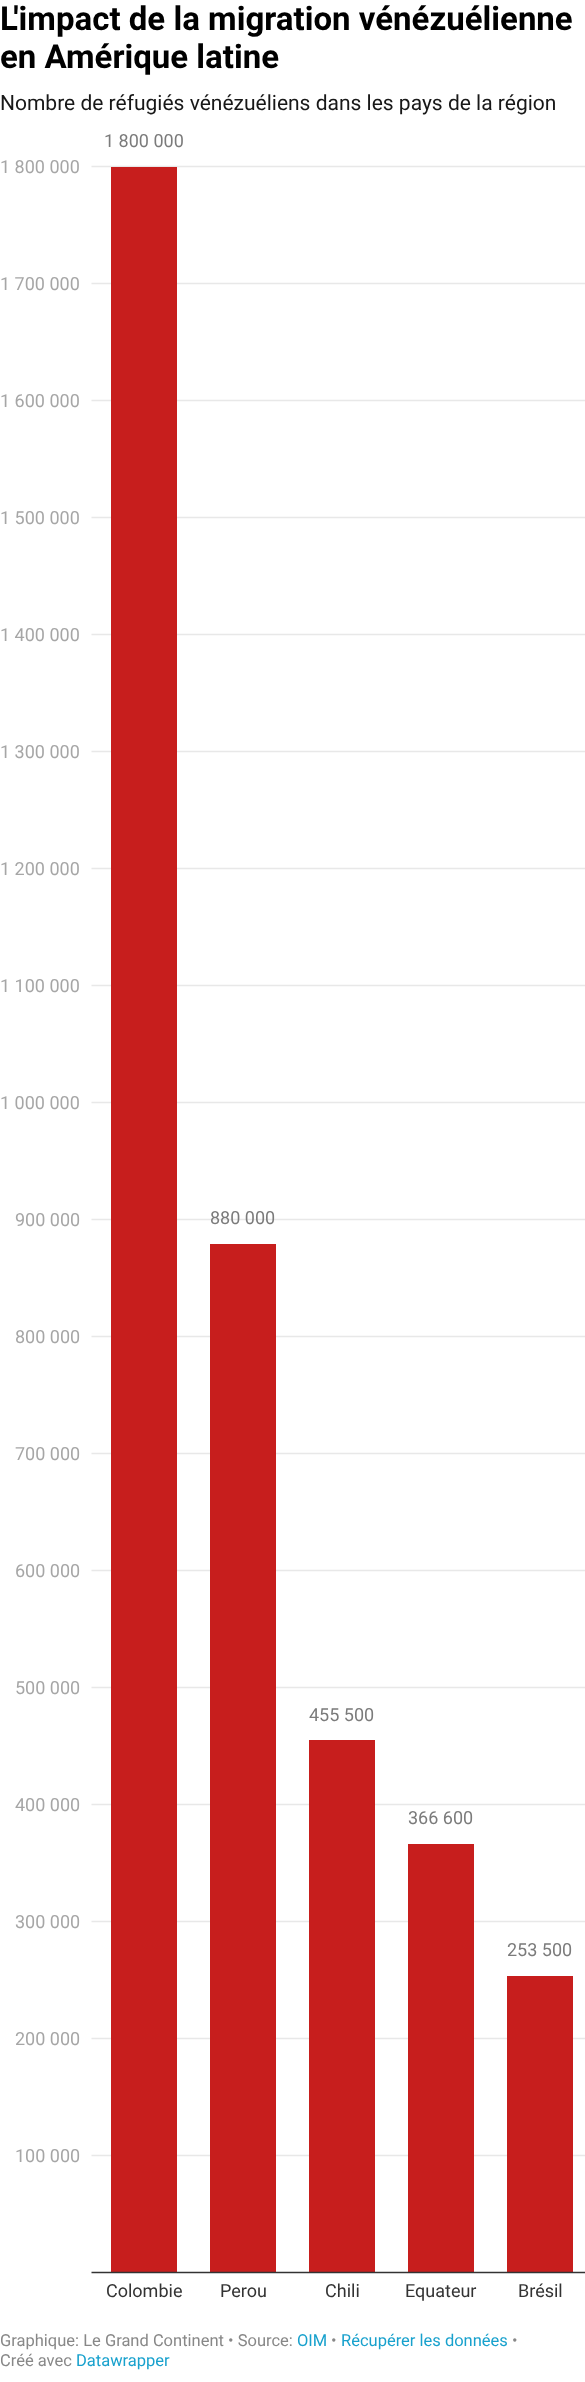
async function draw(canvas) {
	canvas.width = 585;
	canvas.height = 2382;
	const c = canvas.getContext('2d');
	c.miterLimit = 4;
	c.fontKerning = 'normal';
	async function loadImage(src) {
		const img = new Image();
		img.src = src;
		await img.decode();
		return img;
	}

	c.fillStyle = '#fff';
	c.fillRect(0, 0, 585, 2382);
	c.font = 'bold 33px Roboto';
	c.fillStyle = '#000';
	c.fillText('L\'impact de la migration vénézuélienne', 0, 30);
	c.fillText('en Amérique latine', 0, 68);
	c.font = '21px Roboto';
	c.fillStyle = '#181818';
	c.fillText('Nombre de réfugiés vénézuéliens dans les pays de la région', 0, 110);
	c.font = '18px Roboto';
	c.fillStyle = '#7b7b7b';
	c.fillText('1 800 000', 104, 147);
	c.fillStyle = '#a6a6a6';
	c.fillText('1 800 000', 0, 173);
	c.drawImage(await loadImage('img1.png'), 91, 165, 494, 2109);
	for (const [text, x, y] of [
		['1 700 000', 0, 290],
		['1 600 000', 0, 407],
		['1 500 000', 0, 524],
		['1 400 000', 0, 641],
		['1 300 000', 0, 758],
		['1 200 000', 0, 875],
		['1 100 000', 0, 992],
		['1 000 000', 0, 1109],
		['900 000', 15, 1226],
	]) {
		c.fillText(text, x, y);
	}
	c.fillStyle = '#7b7b7b';
	c.fillText('880 000', 210, 1224);
	c.fillStyle = '#a6a6a6';
	for (const [text, x, y] of [
		['800 000', 15, 1343],
		['700 000', 15, 1460],
		['600 000', 15, 1577],
		['500 000', 15, 1694],
	]) {
		c.fillText(text, x, y);
	}
	c.fillStyle = '#7b7b7b';
	c.fillText('455 500', 309, 1721);
	c.fillStyle = '#a6a6a6';
	c.fillText('400 000', 15, 1811);
	c.fillStyle = '#7b7b7b';
	c.fillText('366 600', 408, 1824);
	c.fillStyle = '#a6a6a6';
	c.fillText('300 000', 15, 1928);
	c.fillStyle = '#7b7b7b';
	c.fillText('253 500', 507, 1956);
	c.fillStyle = '#a6a6a6';
	c.fillText('200 000', 15, 2045);
	c.fillText('100 000', 15, 2162);
	c.fillStyle = '#333';
	for (const [text, x, y] of [
		['Colombie', 106, 2297],
		['Perou', 220, 2297],
		['Chili', 325, 2297],
		['Equateur', 405, 2297],
		['Brésil', 518, 2297],
	]) {
		c.fillText(text, x, y);
	}
	c.font = '16.5px Roboto';
	c.fillStyle = '#888';
	c.fillText('Graphique: Le Grand Continent • Source:', 0, 2346);
	c.fillStyle = '#18a1cd';
	c.fillText('OIM', 297, 2346);
	c.fillStyle = '#888';
	c.fillText('•', 331, 2346);
	c.fillStyle = '#18a1cd';
	c.fillText('Récupérer les données', 341, 2346);
	c.fillStyle = '#888';
	c.fillText('•', 512, 2346);
	c.fillText('Créé avec', 0, 2366);
	c.fillStyle = '#18a1cd';
	c.fillText('Datawrapper', 76, 2366);
}

draw(document.querySelector('canvas'));
